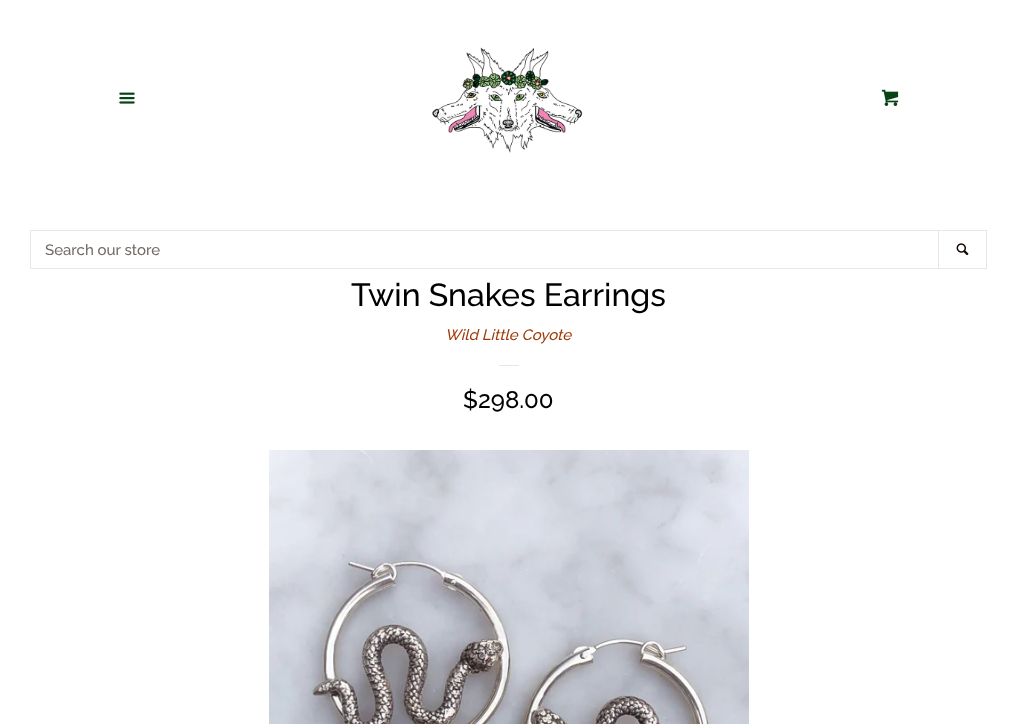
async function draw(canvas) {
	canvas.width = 1017;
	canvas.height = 724;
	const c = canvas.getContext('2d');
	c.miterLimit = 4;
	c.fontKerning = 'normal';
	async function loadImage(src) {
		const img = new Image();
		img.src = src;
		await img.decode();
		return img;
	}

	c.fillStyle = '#fff';
	c.fillRect(0, 0, 1017, 724);
	c.drawImage(await loadImage('img1.png'), 119, 92, 16, 12);
	c.drawImage(await loadImage('img2.png'), 432, 47, 151, 106);
	c.drawImage(await loadImage('img3.png'), 881, 89, 18, 17);
	c.strokeStyle = '#e7e7e7';
	c.strokeRect(30.5, 230.5, 956, 38);
	c.fillStyle = '#e7e7e7';
	c.fillRect(938, 231, 1, 37);
	c.font = '500 15px Raleway';
	c.fillStyle = '#716a66';
	c.fillText('Search our store', 45, 255);
	c.drawImage(await loadImage('img4.png'), 956, 243, 13, 13);
	c.font = '500 32px Raleway';
	c.fillStyle = '#000';
	c.fillText('Twin Snakes Earrings', 351, 306);
	c.font = 'italic 500 15px Raleway';
	c.fillStyle = '#9f3a07';
	c.fillText('Wild Little Coyote', 445, 340);
	c.fillStyle = '#e7e7e7';
	c.fillRect(499, 365, 20, 1);
	c.font = '500 24px Raleway';
	c.fillStyle = '#000';
	c.fillText('$298.00', 463, 408);
	c.drawImage(await loadImage('img5.png'), 269, 450, 480, 274);
}

draw(document.querySelector('canvas'));
